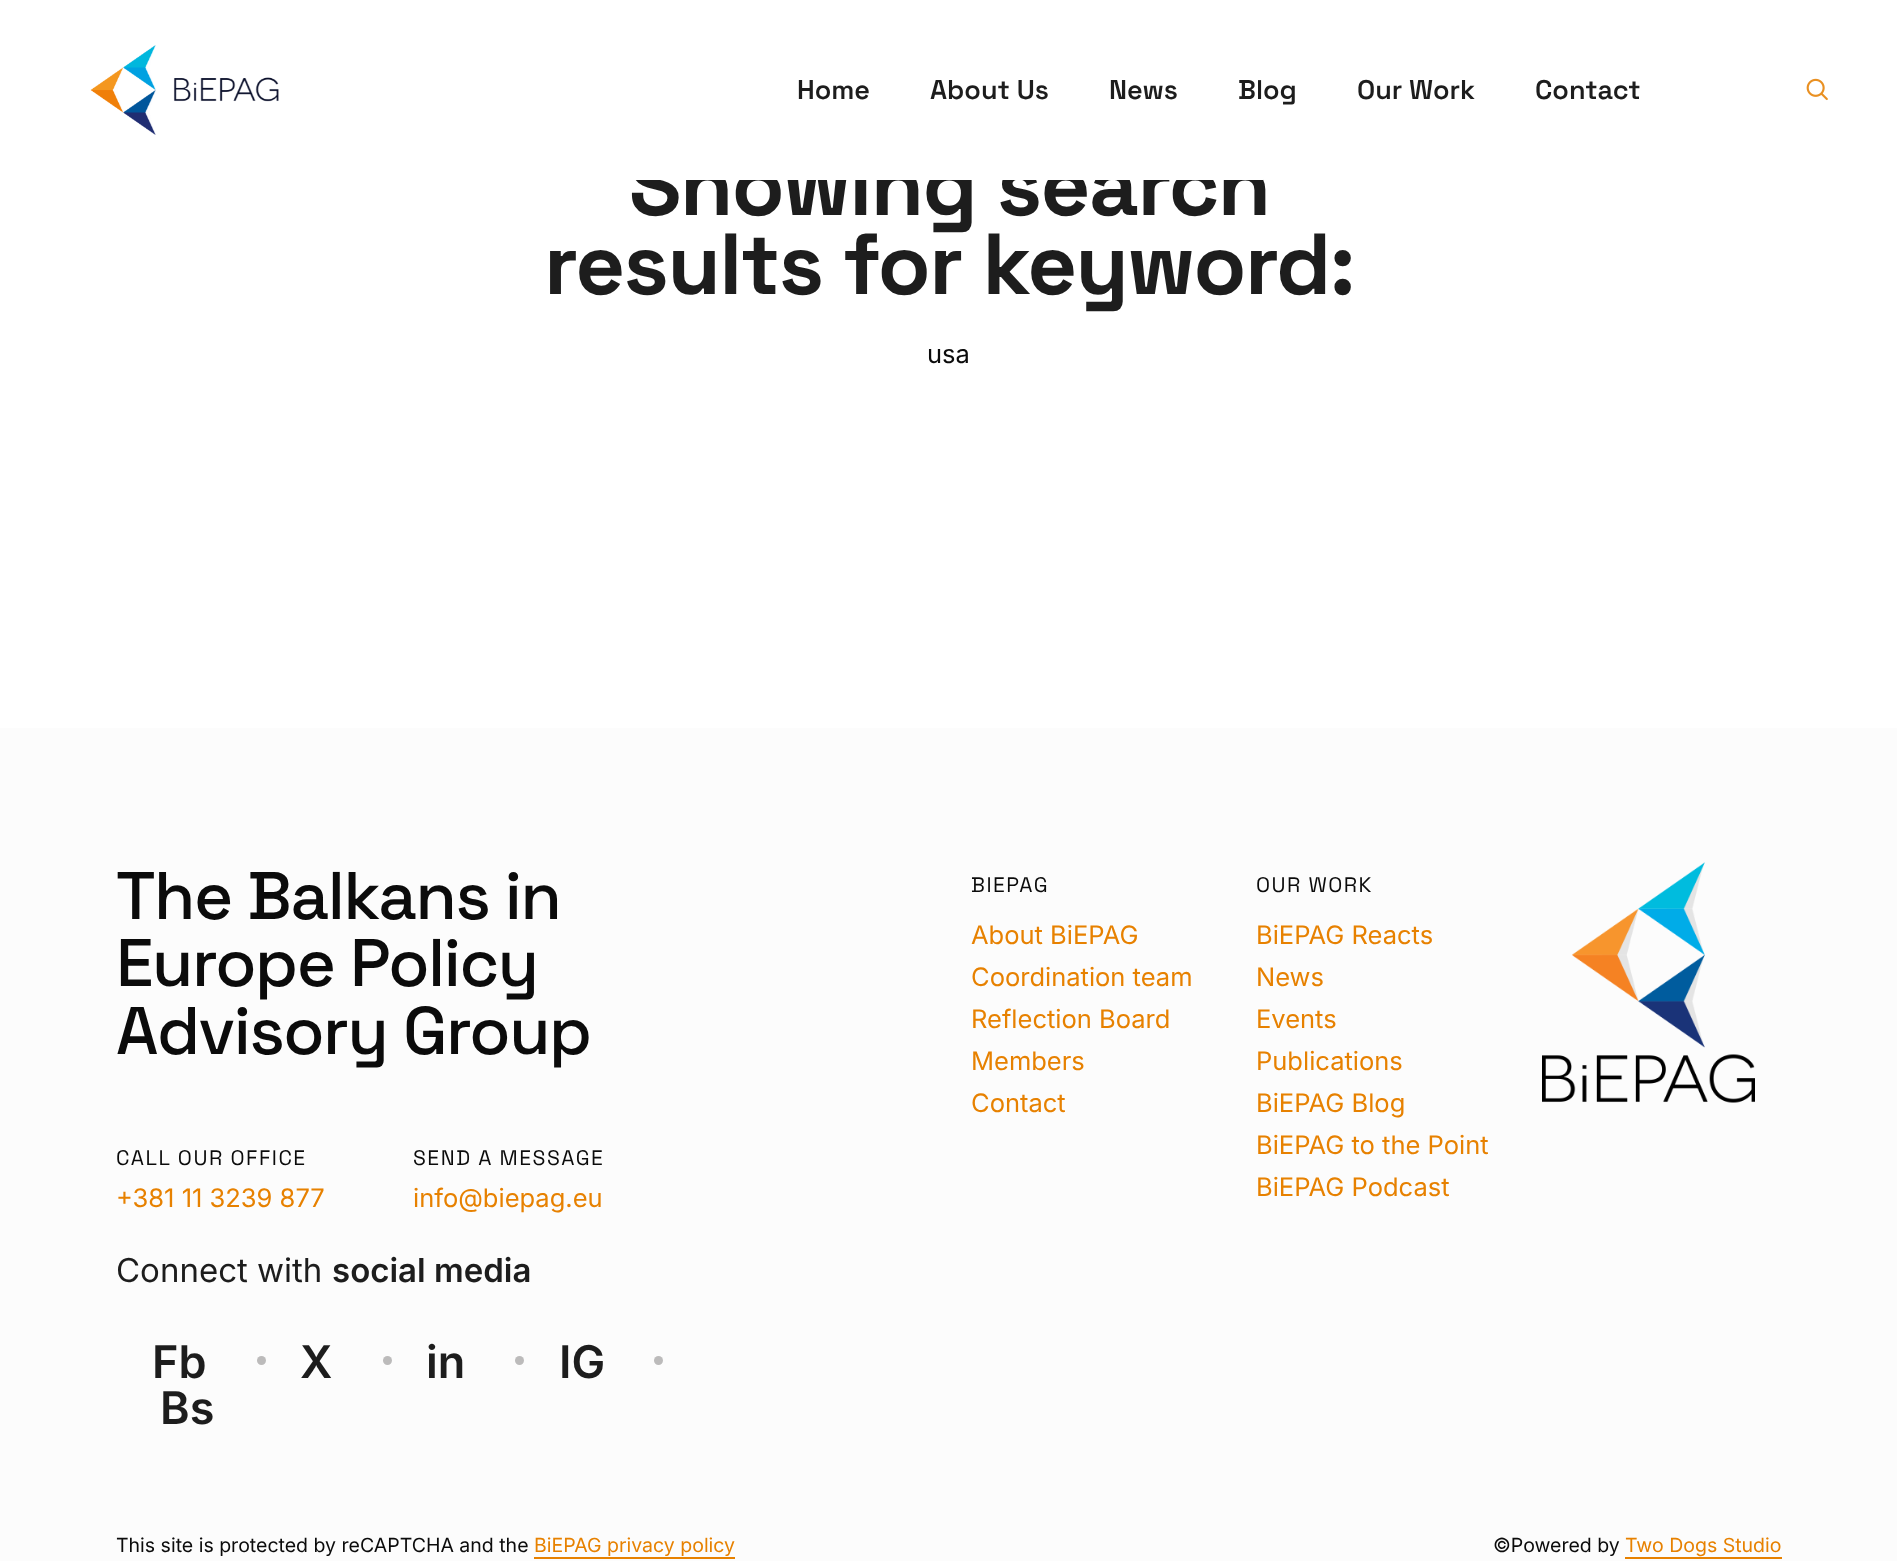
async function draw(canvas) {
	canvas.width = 1897;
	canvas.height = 1561;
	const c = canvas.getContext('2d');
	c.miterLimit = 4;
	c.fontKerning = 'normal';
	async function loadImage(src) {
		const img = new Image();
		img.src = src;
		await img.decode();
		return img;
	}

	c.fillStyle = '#fff';
	c.fillRect(0, 0, 1897, 1561);
	c.letterSpacing = '-1.5px';
	c.font = 'bold 86.5px Space Grotesk';
	c.fillStyle = '#1d1d1d';
	c.fillText('Showing search', 629, 215);
	c.fillStyle = '#fff';
	c.fillRect(633, 153, 630, 27);
	c.drawImage(await loadImage('img1.png'), 90, 45, 189, 90);
	c.letterSpacing = '0px';
	c.font = '600 27px Space Grotesk';
	c.fillStyle = '#1d1d1d';
	for (const [text, x, y] of [
		['Home', 797, 99],
		['About Us', 930, 99],
		['News', 1109, 99],
		['Blog', 1238, 99],
		['Our Work', 1357, 99],
		['Contact', 1535, 99],
	]) {
		c.fillText(text, x, y);
	}
	c.drawImage(await loadImage('img2.png'), 1806, 78, 22, 23);
	c.letterSpacing = '-1.5px';
	c.font = 'bold 86.5px Space Grotesk';
	c.fillText('results for keyword:', 544, 294);
	c.letterSpacing = '0px';
	c.font = '25.5px Inter';
	c.fillStyle = '#0b0b0b';
	c.fillText('usa', 927, 363);
	c.fillStyle = '#fcfcfc';
	c.fillRect(0, 728, 1897, 833);
	c.letterSpacing = '-1.5px';
	c.font = '500 67.25px Space Grotesk';
	c.fillStyle = '#0b0b0b';
	for (const [text, x, y] of [
		['The Balkans in', 116, 919],
		['Europe Policy', 116, 986],
		['Advisory Group', 116, 1054],
	]) {
		c.fillText(text, x, y);
	}
	c.letterSpacing = '1.5px';
	c.font = '21px Space Grotesk';
	c.fillText('CALL OUR OFFICE', 116, 1165);
	c.letterSpacing = '0px';
	c.font = '25.5px Inter';
	c.fillStyle = '#e78100';
	c.fillText('+381 11 3239 877', 116, 1207);
	c.letterSpacing = '1.5px';
	c.font = '21px Space Grotesk';
	c.fillStyle = '#0b0b0b';
	c.fillText('SEND A MESSAGE', 413, 1165);
	c.letterSpacing = '0px';
	c.font = '25.5px Inter';
	c.fillStyle = '#e78100';
	c.fillText('info@biepag.eu', 413, 1207);
	c.font = '33px Inter';
	c.fillStyle = '#1d1d1d';
	c.fillText('Connect with', 116, 1282);
	c.font = '600 33px Inter';
	c.fillText('social media', 332, 1282);
	c.font = '600 45px Inter';
	c.fillText('Fb', 152, 1378);
	c.fillStyle = '#bcbbbb';
	c.beginPath();
	c.arc(261.5, 1360.5, 4.5, 0, 2 * Math.PI);
	c.fill();
	c.fillStyle = '#1d1d1d';
	c.fillText('X', 300, 1378);
	c.fillStyle = '#bcbbbb';
	c.beginPath();
	c.arc(387.5, 1360.5, 4.5, 0, 2 * Math.PI);
	c.fill();
	c.fillStyle = '#1d1d1d';
	c.fillText('in', 426, 1378);
	c.fillStyle = '#bcbbbb';
	c.beginPath();
	c.arc(519.5, 1360.5, 4.5, 0, 2 * Math.PI);
	c.fill();
	c.fillStyle = '#1d1d1d';
	c.fillText('IG', 559, 1378);
	c.fillStyle = '#bcbbbb';
	c.beginPath();
	c.arc(658.5, 1360.5, 4.5, 0, 2 * Math.PI);
	c.fill();
	c.fillStyle = '#1d1d1d';
	c.fillText('Bs', 160, 1424);
	c.letterSpacing = '1.5px';
	c.font = '21px Space Grotesk';
	c.fillStyle = '#0b0b0b';
	c.fillText('BIEPAG', 971, 892);
	c.letterSpacing = '0px';
	c.font = '25.5px Inter';
	c.fillStyle = '#e78100';
	for (const [text, x, y] of [
		['About BiEPAG', 971, 944],
		['Coordination team', 971, 986],
		['Reflection Board', 971, 1028],
		['Members', 971, 1070],
		['Contact', 971, 1112],
	]) {
		c.fillText(text, x, y);
	}
	c.letterSpacing = '1.5px';
	c.font = '21px Space Grotesk';
	c.fillStyle = '#0b0b0b';
	c.fillText('OUR WORK', 1256, 892);
	c.letterSpacing = '0px';
	c.font = '25.5px Inter';
	c.fillStyle = '#e78100';
	for (const [text, x, y] of [
		['BiEPAG Reacts', 1256, 944],
		['News', 1256, 986],
		['Events', 1256, 1028],
		['Publications', 1256, 1070],
		['BiEPAG Blog', 1256, 1112],
		['BiEPAG to the Point', 1256, 1154],
		['BiEPAG Podcast', 1256, 1196],
	]) {
		c.fillText(text, x, y);
	}
	c.drawImage(await loadImage('img3.png'), 1542, 862, 213, 241);
	c.font = '19.5px Inter';
	c.fillStyle = '#0b0b0b';
	c.fillText('This site is protected by reCAPTCHA and the', 116, 1552);
	c.fillStyle = '#e78100';
	c.fillText('BiEPAG privacy policy', 534, 1552);
	c.fillRect(534, 1557, 201, 2);
	c.fillStyle = '#0b0b0b';
	c.fillText('©Powered by', 1493, 1552);
	c.fillStyle = '#e78100';
	c.fillText('Two Dogs Studio', 1625, 1552);
	c.fillRect(1625, 1557, 157, 2);
}

draw(document.querySelector('canvas'));
